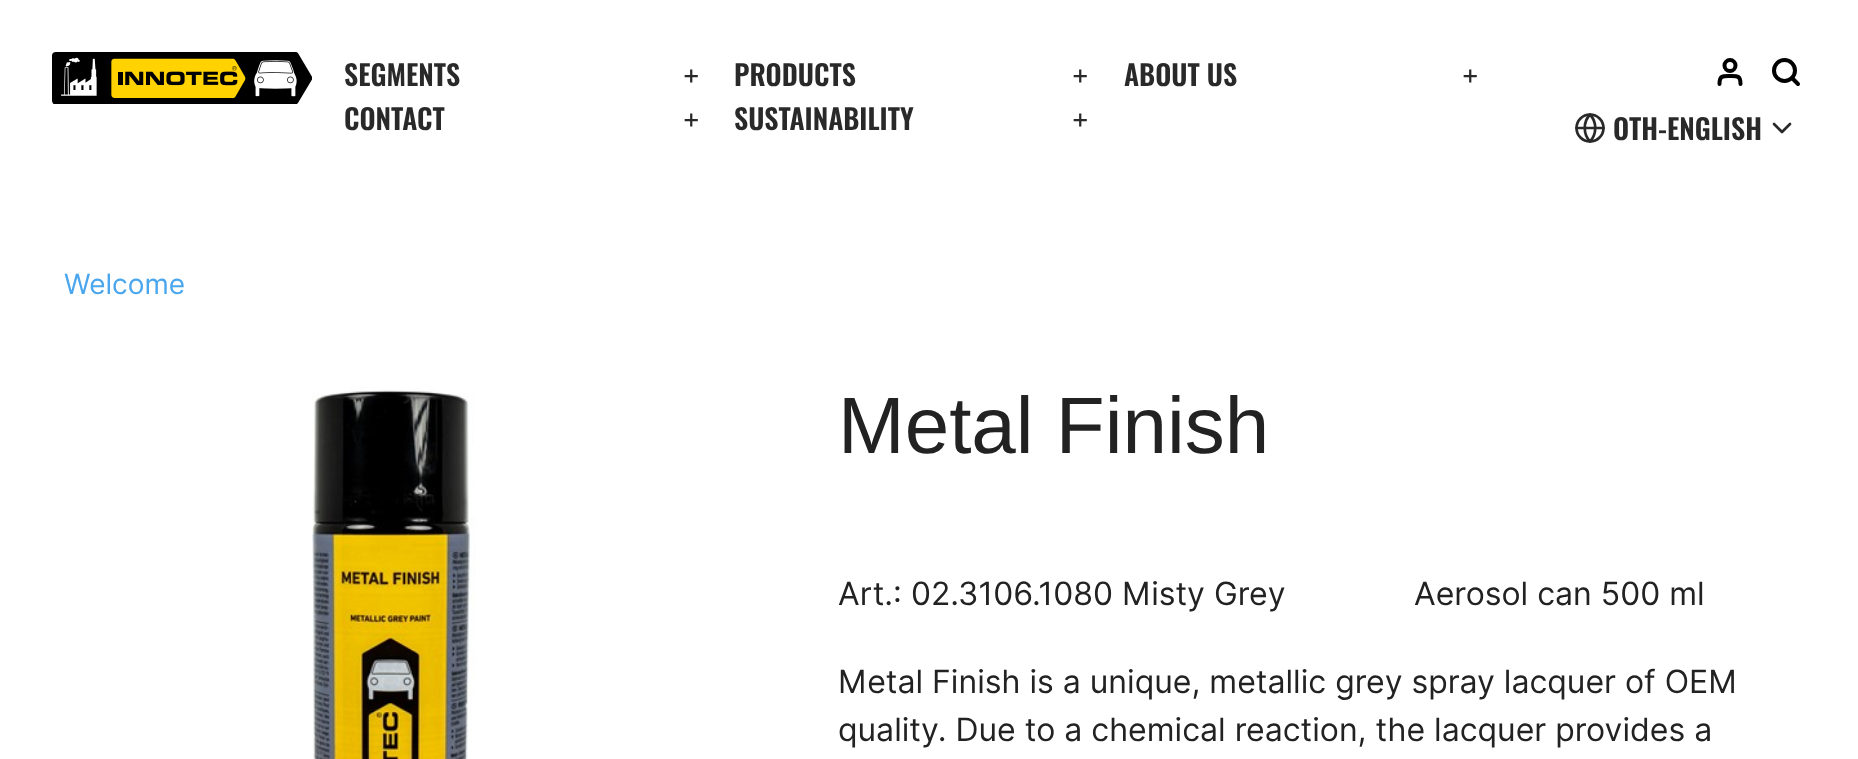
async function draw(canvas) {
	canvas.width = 1858;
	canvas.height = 759;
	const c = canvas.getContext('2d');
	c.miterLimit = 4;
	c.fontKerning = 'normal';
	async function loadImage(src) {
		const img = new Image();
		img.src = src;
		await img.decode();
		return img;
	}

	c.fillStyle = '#fff';
	c.fillRect(0, 0, 1858, 759);
	c.drawImage(await loadImage('img1.png'), 52, 52, 260, 52);
	c.font = '600 28px Oswald';
	c.fillStyle = '#292929';
	c.fillText('SEGMENTS', 344, 86);
	c.font = '28px Inter';
	c.fillText('+', 682, 84);
	c.font = '600 28px Oswald';
	c.fillText('PRODUCTS', 734, 86);
	c.font = '28px Inter';
	c.fillText('+', 1071, 84);
	c.font = '600 28px Oswald';
	c.fillText('ABOUT US', 1124, 86);
	c.font = '28px Inter';
	c.fillText('+', 1461, 84);
	c.font = '600 28px Oswald';
	c.fillText('CONTACT', 344, 130);
	c.font = '28px Inter';
	c.fillText('+', 682, 128);
	c.font = '600 28px Oswald';
	c.fillText('SUSTAINABILITY', 734, 130);
	c.font = '28px Inter';
	c.fillText('+', 1071, 128);
	c.beginPath();
	c.moveTo(1740.5, 84);
	c.bezierCurveTo(1740.5, 75.5, 1737.5, 76, 1730, 76);
	c.bezierCurveTo(1722.5, 76, 1719.5, 75.5, 1719.5, 84);
	c.strokeStyle = '#000';
	c.lineWidth = 4;
	c.lineCap = 'round';
	c.lineJoin = 'round';
	c.stroke();
	c.beginPath();
	c.arc(1730, 65.5, 5.5, 0, 2 * Math.PI);
	c.stroke();
	c.beginPath();
	c.arc(1784.5, 70.5, 10.5, 0, 2 * Math.PI);
	c.stroke();
	c.beginPath();
	c.moveTo(1798, 84);
	c.lineTo(1792, 78);
	c.stroke();
	c.beginPath();
	c.arc(1590, 128, 13.5, 0, 2 * Math.PI);
	c.strokeStyle = '#292929';
	c.lineWidth = 2.7;
	c.stroke();
	c.beginPath();
	c.moveTo(1576.5, 128);
	c.lineTo(1603.5, 128);
	c.moveTo(1590, 114.5);
	c.bezierCurveTo(1597, 122, 1597, 134, 1590, 141.5);
	c.bezierCurveTo(1583, 134, 1583, 122, 1590, 114.5);
	c.closePath();
	c.stroke();
	c.font = '600 28px Oswald';
	c.fillText('OTH-ENGLISH', 1613, 140);
	c.beginPath();
	c.moveTo(1774, 124);
	c.lineTo(1782, 132);
	c.lineTo(1790, 124);
	c.stroke();
	c.font = '28px Inter';
	c.fillStyle = '#4aa6ed';
	c.fillText('Welcome', 64, 294);
	c.drawImage(await loadImage('img2.png'), 312, 387, 164, 372);
	c.font = '80px Liberation Sans';
	c.fillStyle = '#222';
	c.fillText('Metal Finish', 838, 453);
	c.font = '32px Inter';
	for (const [text, x, y] of [
		['Art.: 02.3106.1080 Misty Grey', 838, 605],
		['Aerosol can 500 ml', 1414, 605],
		['Metal Finish is a unique, metallic grey spray lacquer of OEM', 838, 693],
		['quality. Due to a chemical reaction, the lacquer provides a', 838, 741],
	]) {
		c.fillText(text, x, y);
	}
}

draw(document.querySelector('canvas'));
